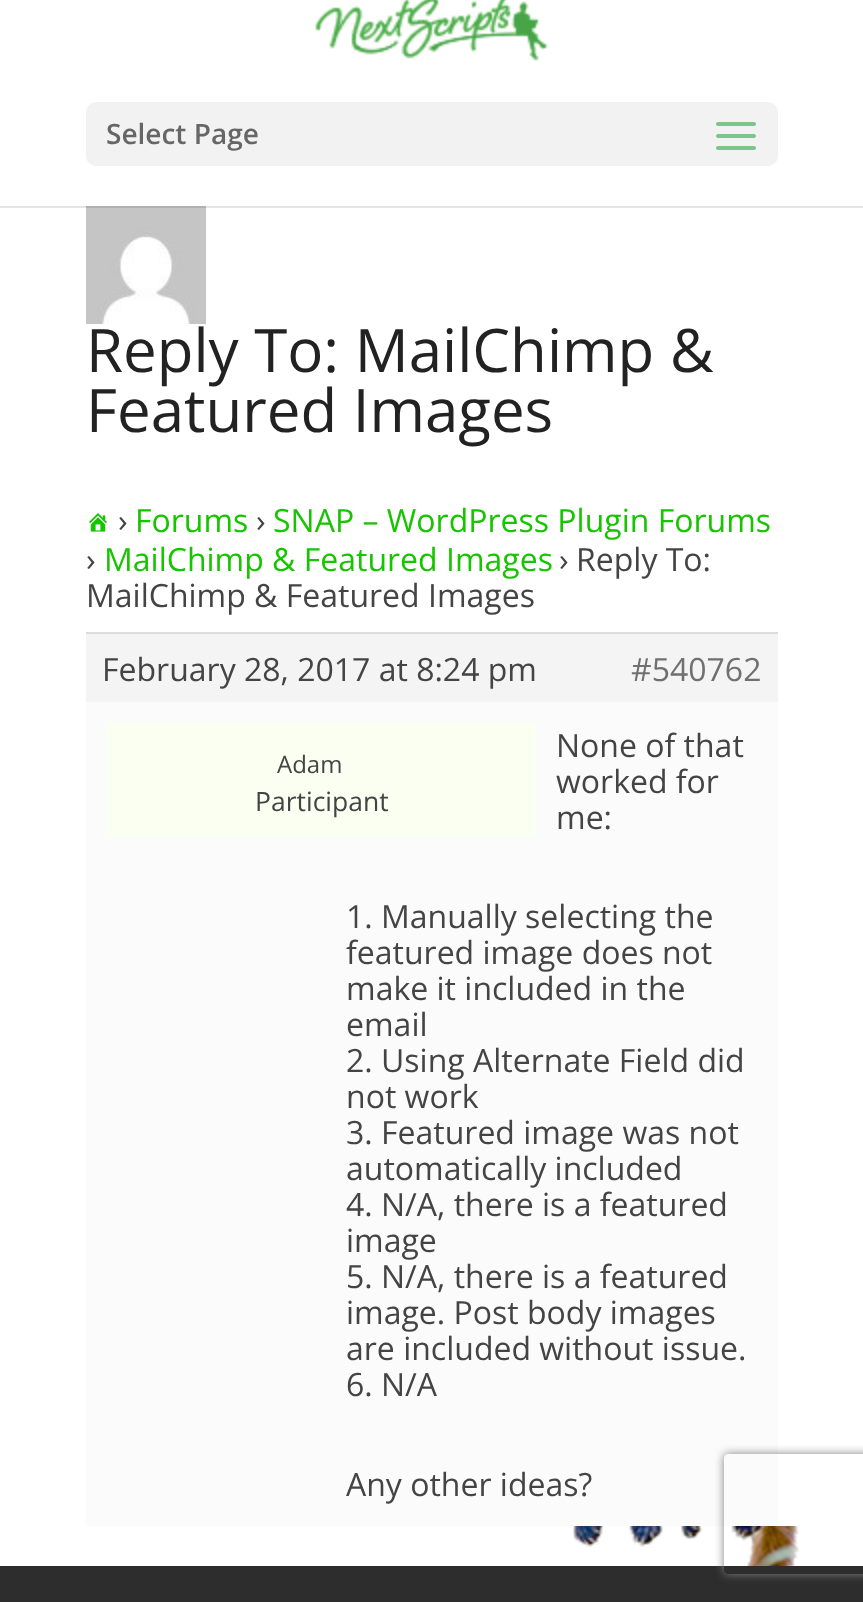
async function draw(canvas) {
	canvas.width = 863;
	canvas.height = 1602;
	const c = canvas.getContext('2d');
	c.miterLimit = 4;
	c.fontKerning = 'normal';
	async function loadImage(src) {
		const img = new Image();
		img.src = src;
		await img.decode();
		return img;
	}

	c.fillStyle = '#fff';
	c.fillRect(0, 0, 863, 1602);
	c.drawImage(await loadImage('img1.png'), 572, 1526, 229, 40);
	c.drawImage(await loadImage('img5.png'), 86, 206, 120, 118);
	c.fillStyle = '#0000001a';
	c.fillRect(0, 206, 863, 2);
	c.drawImage(await loadImage('img2.png'), 315, 0, 234, 61);
	c.fillStyle = '#f2f2f2';
	c.beginPath();
	c.roundRect(86, 102, 692, 64, 10);
	c.fill();
	c.font = '600 28px Open Sans';
	c.fillStyle = '#666';
	c.fillText('Select Page', 106, 144);
	c.drawImage(await loadImage('img3.png'), 716, 122, 40, 28);
	c.font = '60px Open Sans';
	c.fillStyle = '#222';
	c.fillText('Reply To: MailChimp &', 86, 372);
	c.fillText('Featured Images', 86, 432);
	c.drawImage(await loadImage('img4.png'), 89, 513, 18, 19);
	c.font = '32px Open Sans';
	c.fillStyle = '#444';
	c.fillText('›', 118, 532);
	c.fillStyle = '#16c400';
	c.fillText('Forums', 135, 532);
	c.fillStyle = '#444';
	c.fillText('›', 256, 532);
	c.fillStyle = '#16c400';
	c.fillText('SNAP – WordPress Plugin Forums', 273, 532);
	c.fillStyle = '#444';
	c.fillText('›', 86, 571);
	c.fillStyle = '#16c400';
	c.fillText('MailChimp & Featured Images', 104, 571);
	c.fillStyle = '#444';
	for (const [text, x, y] of [
		['›', 559, 571],
		['Reply To:', 576, 571],
		['MailChimp & Featured Images', 86, 607],
	]) {
		c.fillText(text, x, y);
	}
	c.fillStyle = '#f4f4f4';
	c.fillRect(86, 634, 692, 68);
	c.fillStyle = '#ddd';
	c.fillRect(86, 632, 692, 2);
	c.fillStyle = '#444';
	c.fillText('February 28, 2017 at 8:24 pm', 102, 681);
	c.fillStyle = '#707070';
	c.fillText('#540762', 631, 681);
	c.fillStyle = '#fbfbfb';
	c.fillRect(86, 702, 692, 824);
	c.fillStyle = '#fafff1';
	c.fillRect(106, 722, 430, 116);
	c.font = '24px Open Sans';
	c.fillStyle = '#444';
	c.fillText('Adam', 277, 773);
	c.font = '26.5px Open Sans';
	c.fillText('Participant', 255, 811);
	c.font = '32px Open Sans';
	for (const [text, x, y] of [
		['None of that', 556, 757],
		['worked for', 556, 793],
		['me:', 556, 829],
		['1. Manually selecting the', 346, 928],
		['featured image does not', 346, 964],
		['make it included in the', 346, 1000],
		['email', 346, 1036],
		['2. Using Alternate Field did', 346, 1072],
		['not work', 346, 1108],
		['3. Featured image was not', 346, 1144],
		['automatically included', 346, 1180],
		['4. N/A, there is a featured', 346, 1216],
		['image', 346, 1252],
		['5. N/A, there is a featured', 346, 1288],
		['image. Post body images', 346, 1324],
		['are included without issue.', 346, 1360],
		['6. N/A', 346, 1396],
		['Any other ideas?', 346, 1496],
	]) {
		c.fillText(text, x, y);
	}
	c.fillStyle = '#2d2d2d';
	c.fillRect(0, 1566, 863, 36);
	c.save();
	c.beginPath();
	c.moveTo(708, 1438);
	c.lineTo(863, 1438);
	c.lineTo(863, 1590);
	c.lineTo(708, 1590);
	c.closePath();
	c.moveTo(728, 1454);
	c.lineTo(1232, 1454);
	c.bezierCurveTo(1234, 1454, 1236, 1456, 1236, 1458);
	c.lineTo(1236, 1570);
	c.bezierCurveTo(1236, 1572, 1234, 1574, 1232, 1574);
	c.lineTo(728, 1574);
	c.bezierCurveTo(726, 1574, 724, 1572, 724, 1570);
	c.lineTo(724, 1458);
	c.bezierCurveTo(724, 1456, 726, 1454, 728, 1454);
	c.closePath();
	c.clip('evenodd');
	c.fillStyle = '#808080';
	c.filter = 'blur(5px)';
	c.beginPath();
	c.roundRect(724, 1454, 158, 120, 4);
	c.fill();
	c.filter = 'none';
	c.restore();
}

draw(document.querySelector('canvas'));
